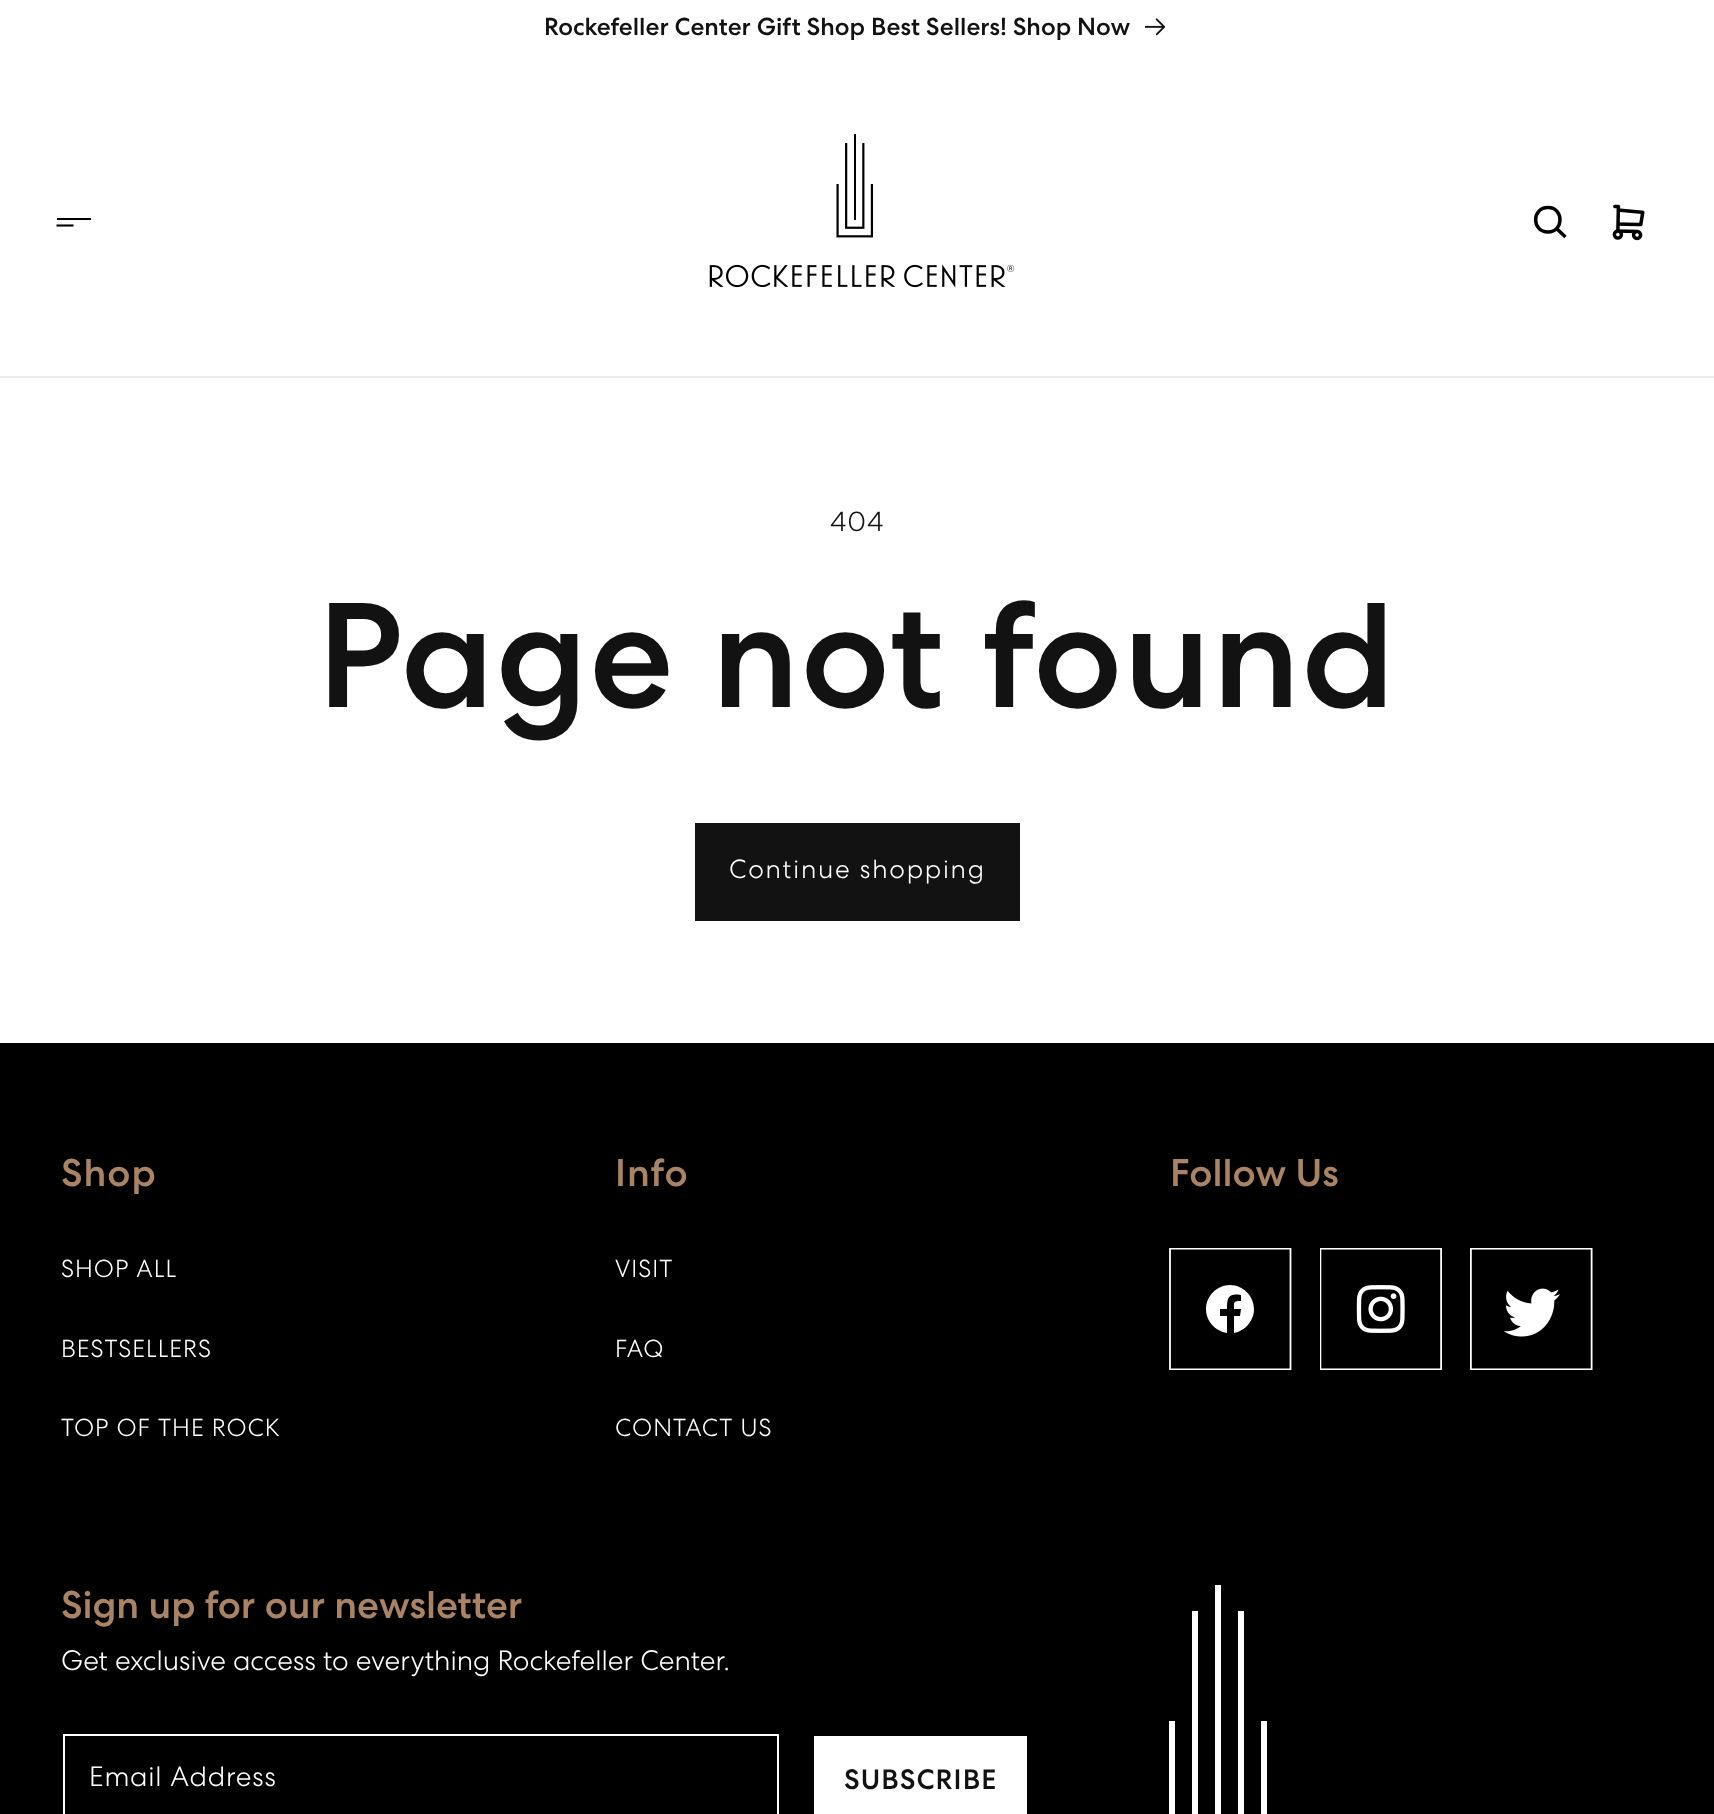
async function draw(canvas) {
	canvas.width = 1714;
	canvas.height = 1814;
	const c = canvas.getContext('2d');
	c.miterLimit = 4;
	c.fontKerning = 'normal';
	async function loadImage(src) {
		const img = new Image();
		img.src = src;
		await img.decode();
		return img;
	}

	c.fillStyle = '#fff';
	c.fillRect(0, 0, 1714, 1814);
	c.font = '500 24.5px "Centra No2"';
	c.fillStyle = '#121212';
	c.fillText('Rockefeller Center Gift Shop Best Sellers! Shop Now', 544, 35);
	c.drawImage(await loadImage('img1.png'), 1145, 18, 21, 18);
	c.fillStyle = '#ececec';
	c.fillRect(0, 376, 1714, 2);
	c.fillStyle = '#000';
	c.fillRect(57, 218, 34, 2);
	c.beginPath();
	c.moveTo(56.5, 225.5);
	c.lineTo(73.5, 225.5);
	c.strokeStyle = '#000';
	c.lineWidth = 2.1;
	c.stroke();
	c.drawImage(await loadImage('img2.png'), 709, 134, 306, 154);
	c.beginPath();
	c.moveTo(1548, 232);
	c.bezierCurveTo(1564, 232, 1564, 207.5, 1548, 207.5);
	c.bezierCurveTo(1531.5, 207.5, 1531.5, 232, 1548, 232);
	c.closePath();
	c.moveTo(1556.5, 228.5);
	c.lineTo(1565.5, 237);
	c.lineWidth = 3.5;
	c.stroke();
	c.drawImage(await loadImage('img3.png'), 1612, 204, 33, 37);
	c.letterSpacing = '1px';
	c.font = '300 28px "Centra No2"';
	c.fillStyle = '#121212';
	c.fillText('404', 830, 531);
	c.font = '500 148.75px "Centra No2"';
	c.fillText('Page not found', 317, 707);
	c.fillRect(695, 823, 325, 98);
	c.letterSpacing = '1.75px';
	c.font = '300 26.25px "Centra No2"';
	c.fillStyle = '#fff';
	c.fillText('Continue shopping', 729, 878);
	c.fillStyle = '#000';
	c.fillRect(0, 1043, 1714, 771);
	c.letterSpacing = '1px';
	c.font = '500 38.5px "Centra No2"';
	c.fillStyle = '#a98363';
	c.fillText('Shop', 61, 1186);
	c.font = '300 24.5px "Centra No2"';
	c.fillStyle = '#fff';
	for (const [text, x, y] of [
		['SHOP ALL', 61, 1277],
		['BESTSELLERS', 61, 1357],
		['TOP OF THE ROCK', 61, 1436],
	]) {
		c.fillText(text, x, y);
	}
	c.font = '500 38.5px "Centra No2"';
	c.fillStyle = '#a98363';
	c.fillText('Info', 615, 1186);
	c.font = '300 24.5px "Centra No2"';
	c.fillStyle = '#fff';
	for (const [text, x, y] of [
		['VISIT', 615, 1277],
		['FAQ', 615, 1357],
		['CONTACT US', 615, 1436],
	]) {
		c.fillText(text, x, y);
	}
	c.letterSpacing = '0px';
	c.font = '500 38.5px "Centra No2"';
	c.fillStyle = '#a98363';
	c.fillText('Follow Us', 1170, 1186);
	c.save();
	c.beginPath();
	c.rect(1169, 1248, 123, 122);
	c.clip();
	c.beginPath();
	c.moveTo(1170, 1248.5);
	c.lineTo(1290.5, 1248.5);
	c.lineTo(1290.5, 1369.5);
	c.lineTo(1170, 1369.5);
	c.closePath();
	c.strokeStyle = '#fff';
	c.lineWidth = 1.8;
	c.stroke();
	c.restore();
	c.fillStyle = '#fff';
	c.beginPath();
	c.moveTo(1254, 1309);
	c.bezierCurveTo(1254, 1296, 1243, 1285, 1230, 1285);
	c.bezierCurveTo(1217, 1285, 1206, 1296, 1206, 1309);
	c.bezierCurveTo(1206, 1321, 1215, 1331, 1227, 1333);
	c.lineTo(1227, 1316);
	c.lineTo(1220, 1316);
	c.lineTo(1220, 1309);
	c.lineTo(1227, 1309);
	c.bezierCurveTo(1227, 1298, 1228, 1293, 1241, 1295);
	c.lineTo(1241, 1301);
	c.bezierCurveTo(1233, 1301, 1234, 1302, 1234, 1309);
	c.lineTo(1241, 1309);
	c.lineTo(1240, 1316);
	c.lineTo(1234, 1316);
	c.lineTo(1234, 1333);
	c.bezierCurveTo(1245, 1331, 1254, 1321, 1254, 1309);
	c.closePath();
	c.fill('evenodd');
	c.drawImage(await loadImage('img4.png'), 1320, 1248, 122, 122);
	c.drawImage(await loadImage('img5.png'), 1470, 1248, 123, 122);
	c.fillStyle = '#a98363';
	c.fillText('Sign up for our newsletter', 61, 1618);
	c.font = '300 28px "Centra No2"';
	c.fillStyle = '#fff';
	c.fillText('Get exclusive access to everything Rockefeller Center.', 61, 1670);
	c.strokeStyle = '#fff';
	c.lineWidth = 2;
	c.strokeRect(64, 1735, 714, 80);
	c.letterSpacing = '0.75px';
	c.fillText('Email Address', 89, 1786);
	c.fillRect(814, 1736, 213, 78);
	c.letterSpacing = '1.1px';
	c.font = '500 28px "Centra No2"';
	c.fillStyle = '#121212';
	c.fillText('SUBSCRIBE', 844, 1789);
	c.fillStyle = '#fff';
	c.beginPath();
	c.moveTo(1261, 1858);
	c.lineTo(1261, 1721);
	c.lineTo(1267, 1721);
	c.lineTo(1267, 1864);
	c.lineTo(1169, 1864);
	c.lineTo(1169, 1721);
	c.lineTo(1175, 1721);
	c.lineTo(1175, 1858);
	c.closePath();
	c.fill();
	c.beginPath();
	c.moveTo(1238, 1611);
	c.lineTo(1244, 1611);
	c.lineTo(1244, 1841);
	c.lineTo(1192, 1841);
	c.lineTo(1192, 1611);
	c.lineTo(1198, 1611);
	c.lineTo(1198, 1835);
	c.lineTo(1238, 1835);
	c.closePath();
	c.fill();
	c.fillRect(1215, 1585, 6, 229);
}

draw(document.querySelector('canvas'));
